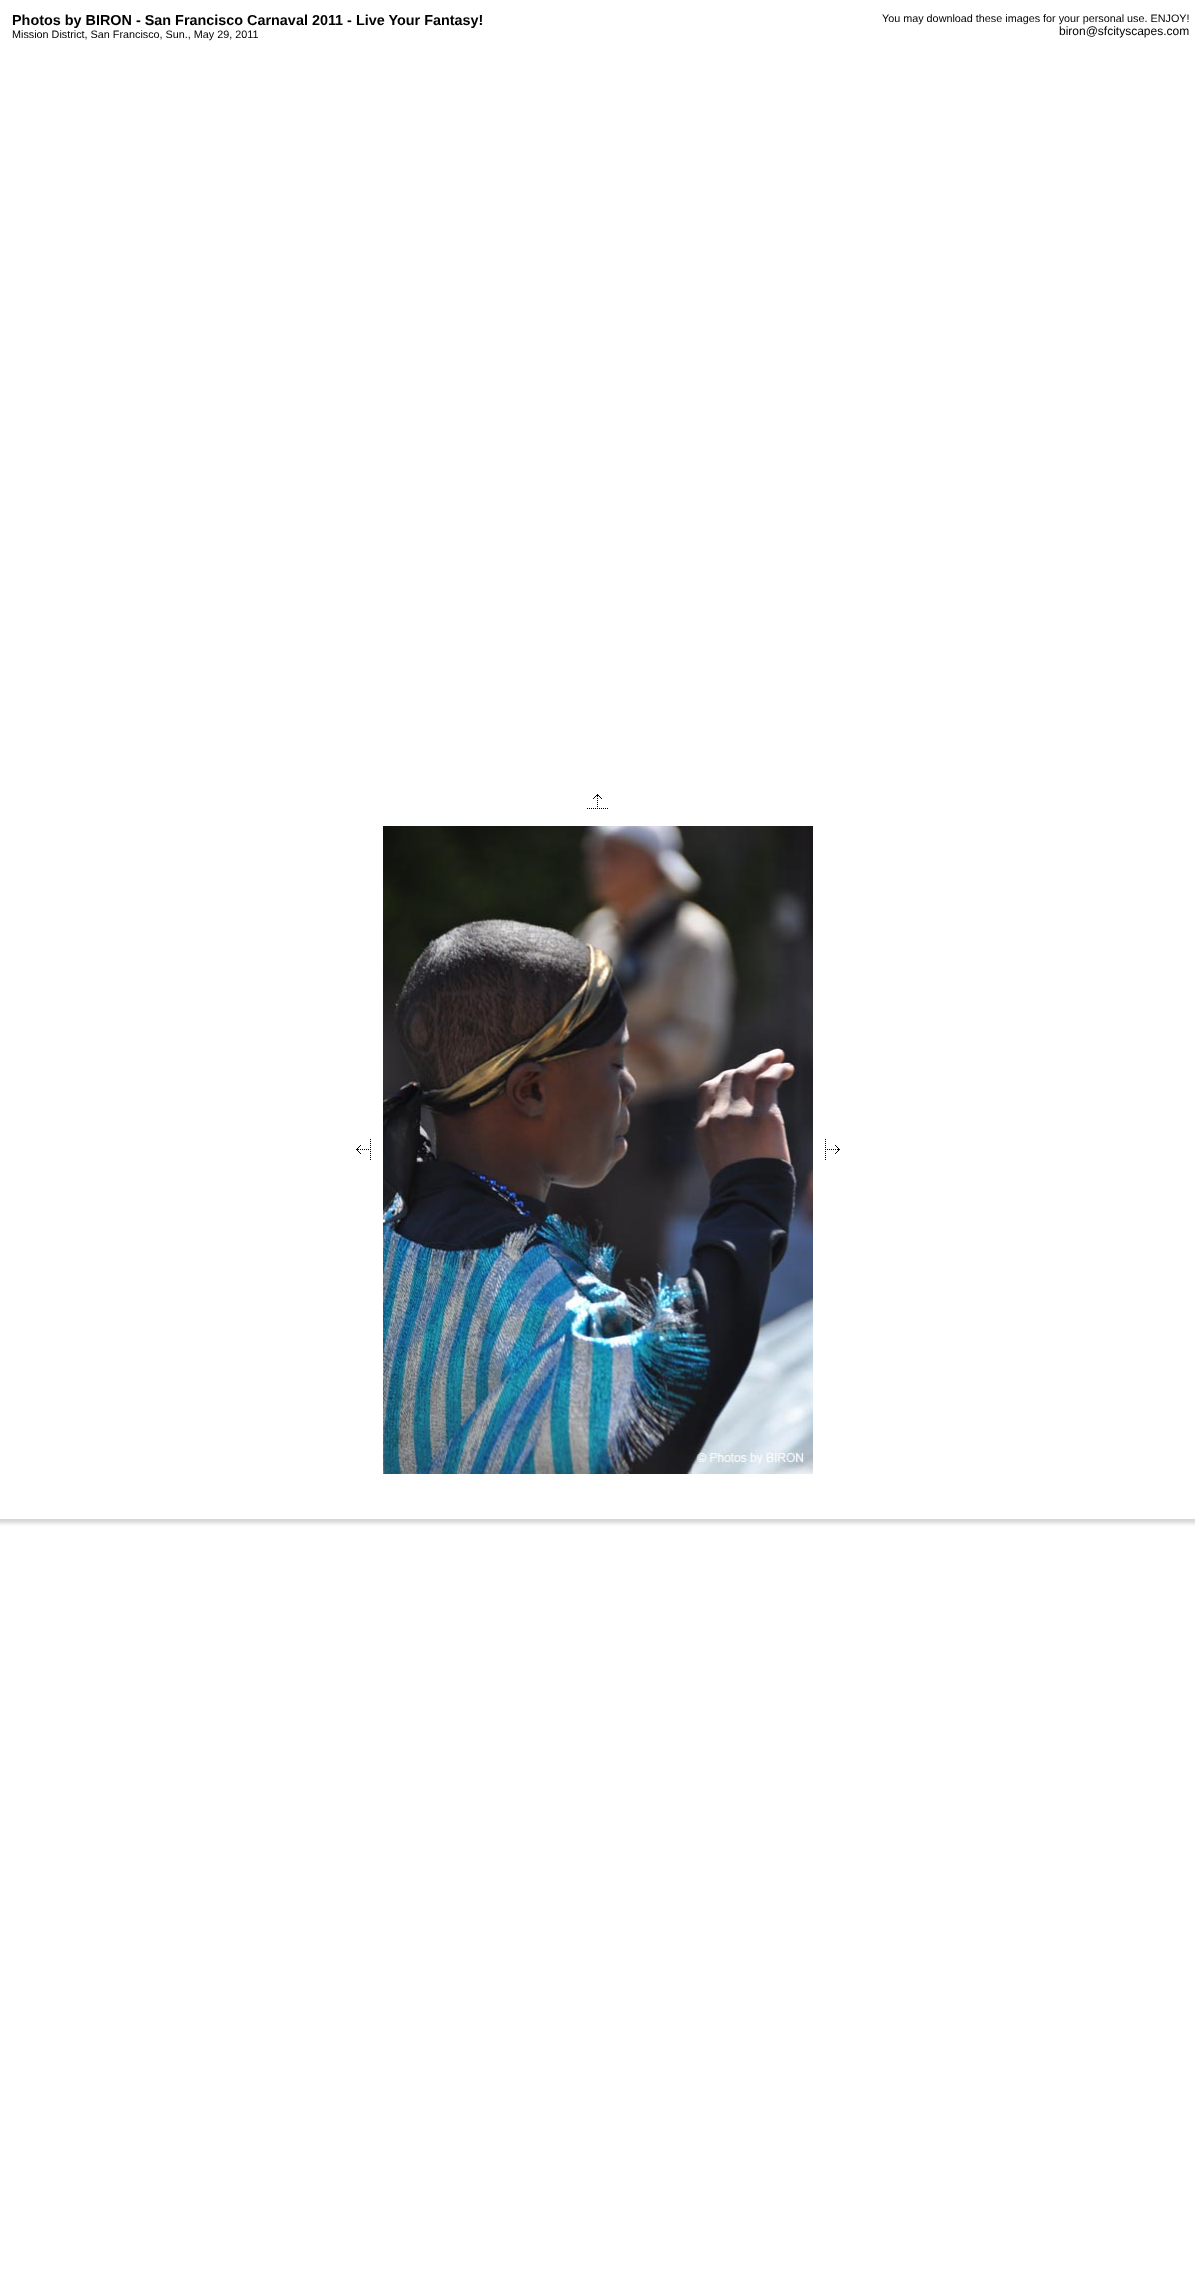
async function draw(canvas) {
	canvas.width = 1195;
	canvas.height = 2285;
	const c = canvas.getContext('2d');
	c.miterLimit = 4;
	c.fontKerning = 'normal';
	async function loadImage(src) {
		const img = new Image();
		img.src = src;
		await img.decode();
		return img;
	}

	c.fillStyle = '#fff';
	c.fillRect(0, 0, 1195, 2285);
	c.font = 'bold 14.4px Liberation Sans';
	c.fillStyle = '#000';
	c.fillText('Photos by BIRON - San Francisco Carnaval 2011 - Live Your Fantasy!', 12, 25);
	c.font = '10.8px Liberation Sans';
	c.fillText('Mission District, San Francisco, Sun., May 29, 2011', 12, 38);
	c.fillText('You may download these images for your personal use. ENJOY!', 882, 22);
	c.font = '12px Liberation Sans';
	c.fillText('biron@sfcityscapes.com', 1059, 35);
	c.drawImage(await loadImage('img1.png'), 587, 794, 21, 15);
	c.drawImage(await loadImage('img2.png'), 356, 1139, 15, 21);
	c.drawImage(await loadImage('img3.png'), 383, 826, 430, 648);
	c.drawImage(await loadImage('img4.png'), 825, 1139, 15, 21);
	c.drawImage(await loadImage('img5.png'), 0, 1519, 1195, 7);
}

draw(document.querySelector('canvas'));
